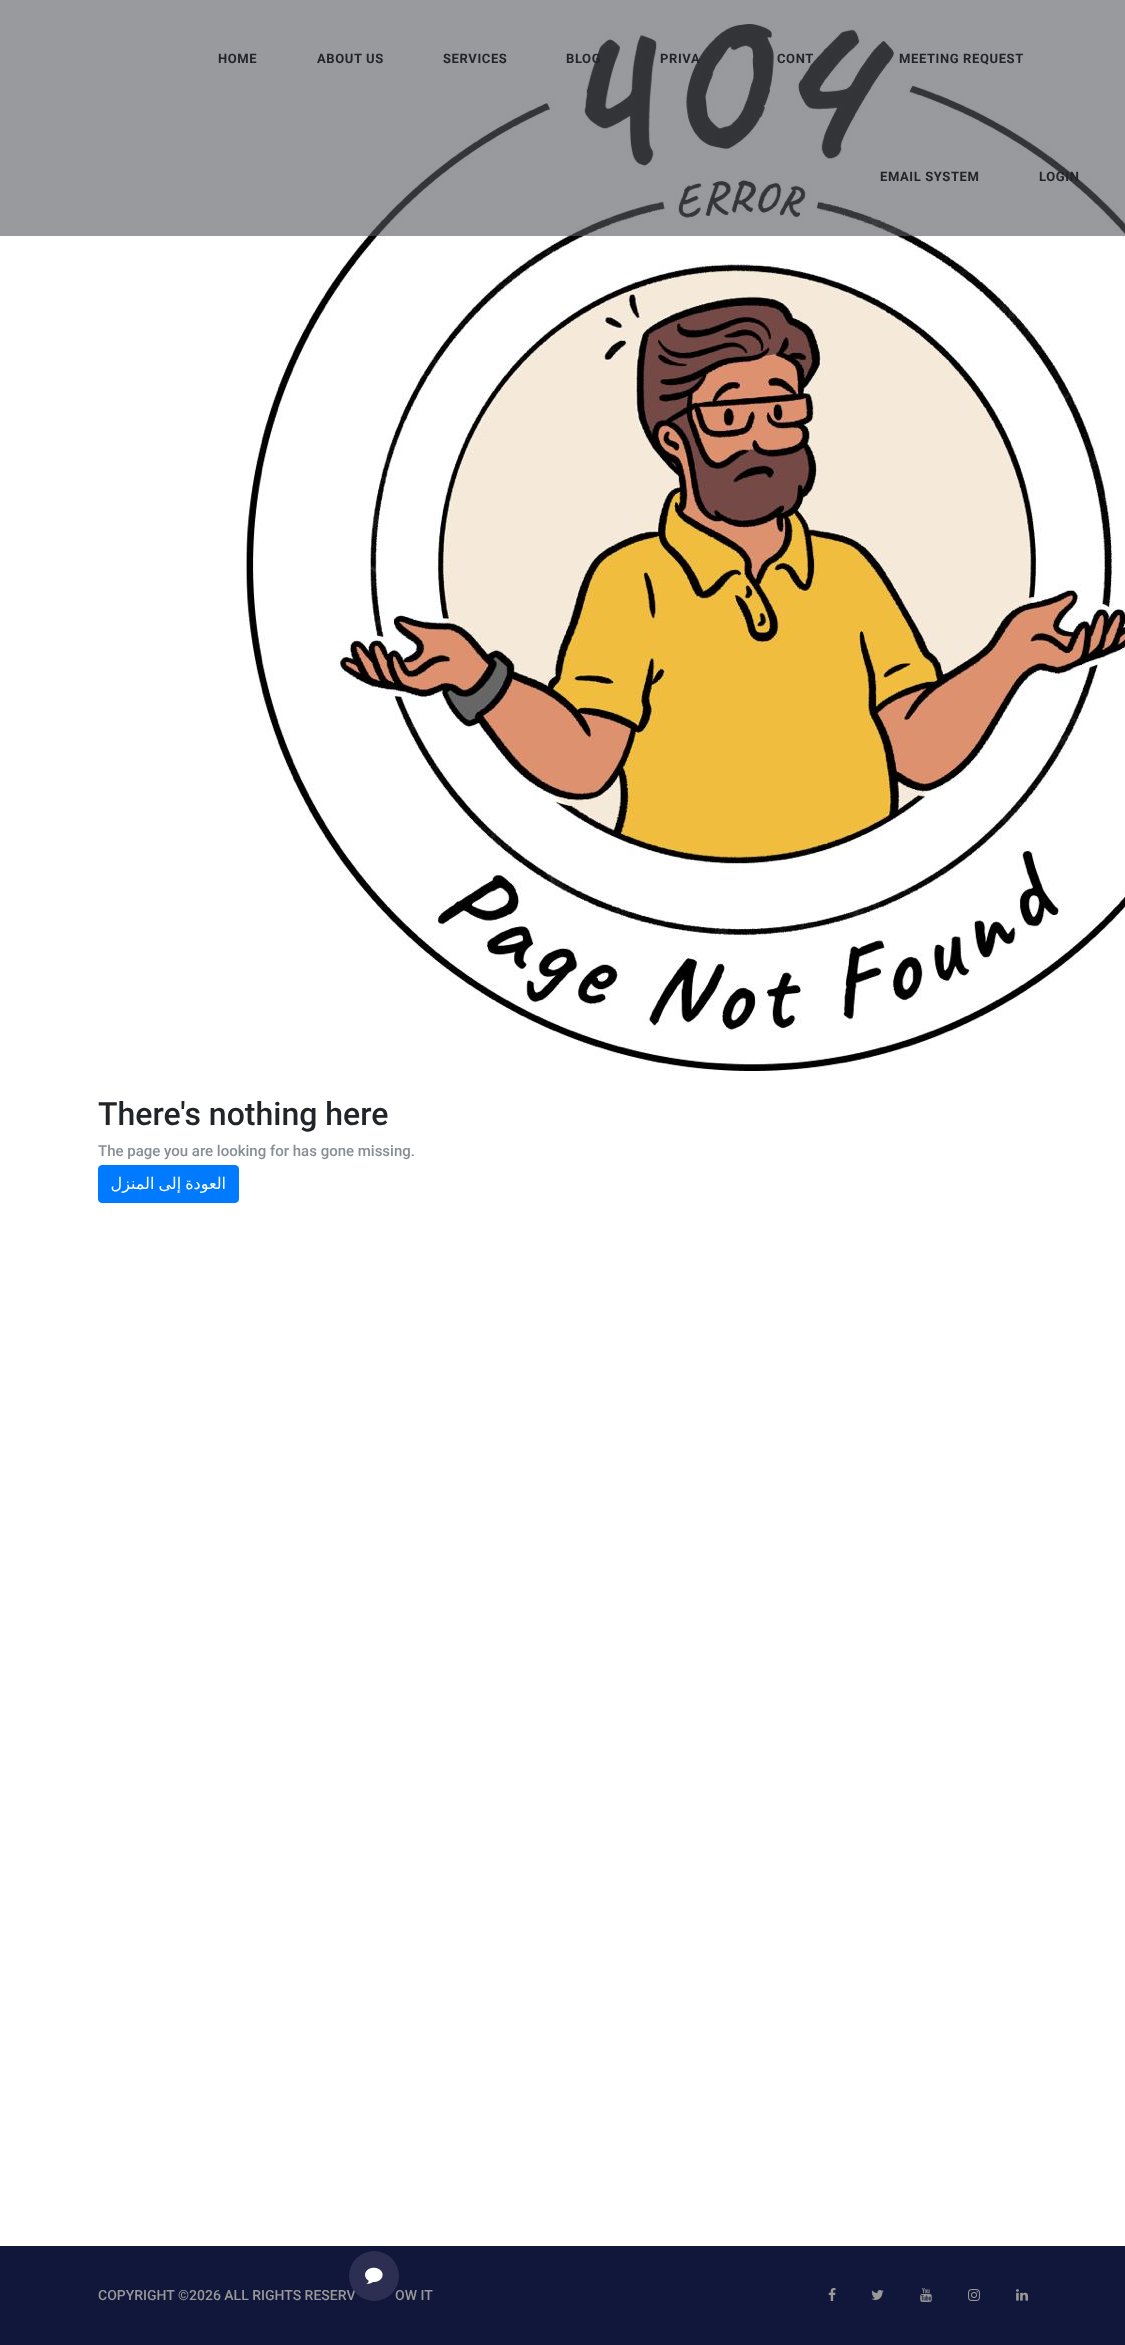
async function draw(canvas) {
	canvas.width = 1125;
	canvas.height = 2345;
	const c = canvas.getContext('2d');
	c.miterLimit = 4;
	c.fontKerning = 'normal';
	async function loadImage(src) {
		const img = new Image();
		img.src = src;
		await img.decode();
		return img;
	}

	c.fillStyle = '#fff';
	c.fillRect(0, 0, 1125, 2345);
	c.drawImage(await loadImage('img1.png'), 243, 24, 882, 1047);
	c.fillStyle = '#54565d99';
	c.fillRect(0, 0, 1125, 236);
	c.letterSpacing = '0.6px';
	c.font = 'bold 13px Roboto';
	c.fillStyle = '#212529';
	for (const [text, x, y] of [
		['HOME', 218, 63],
		['ABOUT US', 317, 63],
		['SERVICES', 443, 63],
		['BLOG', 566, 63],
		['PRIVA', 660, 63],
		['CONT', 777, 63],
		['MEETING REQUEST', 899, 63],
		['EMAIL SYSTEM', 880, 181],
		['LOGIN', 1039, 181],
	]) {
		c.fillText(text, x, y);
	}
	c.letterSpacing = '0px';
	c.font = '500 32px Roboto';
	c.fillText('There\'s nothing here', 98, 1125);
	c.font = '500 15px Roboto';
	c.fillStyle = '#868e96';
	c.fillText('The page you are looking for has gone missing.', 98, 1156);
	c.fillStyle = '#007bff';
	c.beginPath();
	c.roundRect(98.5, 1165.5, 140, 37, 3.5);
	c.fill();
	c.strokeStyle = '#007bff';
	c.stroke();
	c.wordSpacing = '-1px';
	c.direction = 'rtl';
	c.font = '16px DejaVu Sans';
	c.fillStyle = '#fff';
	c.fillText('العودة إلى المنزل', 226, 1189);
	c.fillStyle = '#11173b';
	c.fillRect(0, 2246, 1125, 99);
	c.wordSpacing = '0px';
	c.direction = 'ltr';
	c.font = '500 14px Roboto';
	c.fillStyle = '#999';
	c.fillText('COPYRIGHT ©2026 ALL RIGHTS RESERV', 98, 2300);
	c.fillText('OW IT', 395, 2300);
	c.fillStyle = '#2c2f52';
	c.beginPath();
	c.arc(374, 2276, 25, 0, 2 * Math.PI);
	c.fill();
	c.drawImage(await loadImage('img2.png'), 365, 2267, 18, 17);
	c.drawImage(await loadImage('img3.png'), 828, 2288, 8, 13);
	c.drawImage(await loadImage('img4.png'), 871, 2290, 13, 10);
	c.drawImage(await loadImage('img5.png'), 920, 2288, 12, 14);
	c.drawImage(await loadImage('img6.png'), 968, 2289, 12, 12);
	c.drawImage(await loadImage('img7.png'), 1016, 2289, 12, 12);
}

draw(document.querySelector('canvas'));
